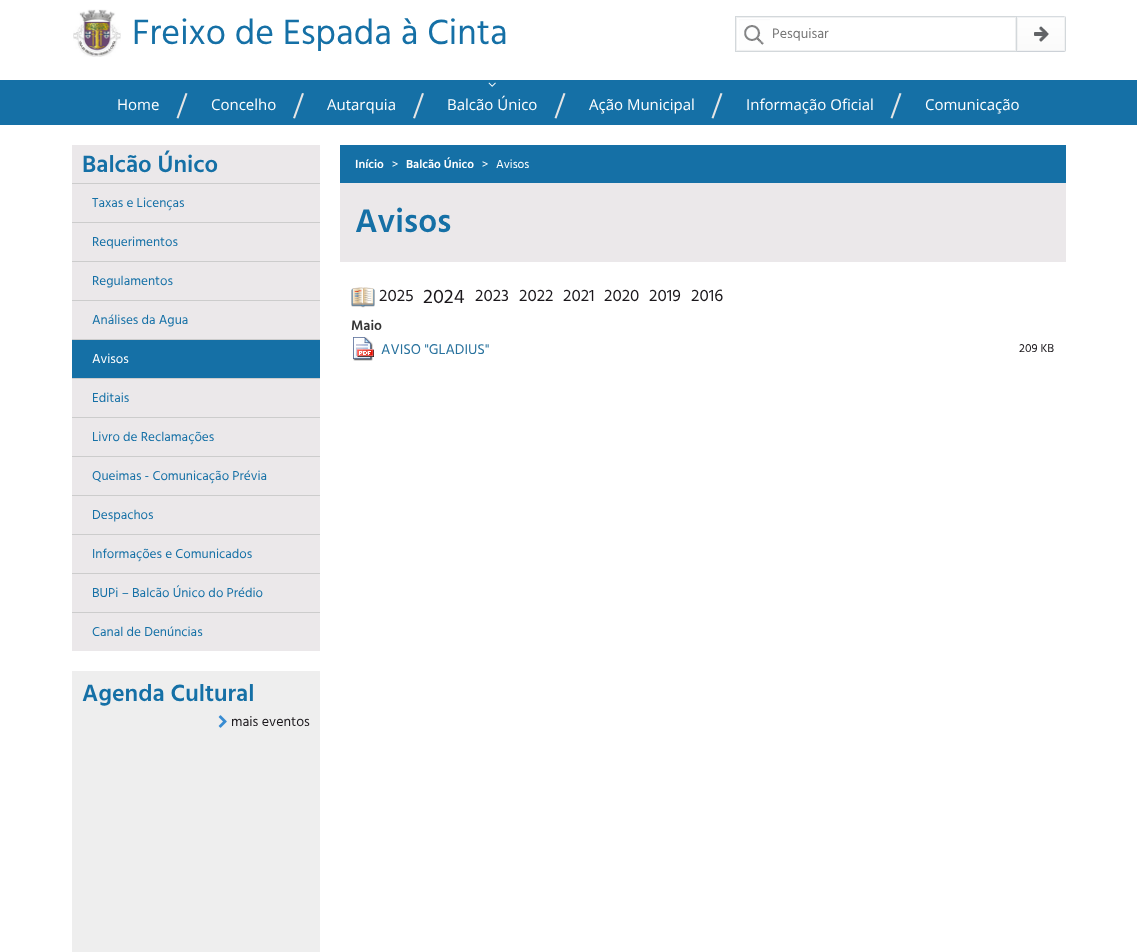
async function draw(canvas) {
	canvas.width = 1137;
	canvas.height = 952;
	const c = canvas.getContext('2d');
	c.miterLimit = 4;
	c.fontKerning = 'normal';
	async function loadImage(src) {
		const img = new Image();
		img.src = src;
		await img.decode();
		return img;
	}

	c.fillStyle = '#fff';
	c.fillRect(0, 0, 1137, 952);
	c.drawImage(await loadImage('img1.png'), 73, 9, 48, 48);
	c.font = '36px Hind Madurai';
	c.fillStyle = '#1570a6';
	c.fillText('Freixo de Espada à Cinta', 132, 44);
	c.drawImage(await loadImage('img2.png'), 739, 19, 31, 31);
	c.strokeStyle = '#eff0f1';
	c.strokeRect(736.5, 17.5, 279, 33);
	c.strokeStyle = '#d3d8db';
	c.strokeRect(735.5, 16.5, 281, 35);
	c.font = '14px Hind Madurai';
	c.fillStyle = '#767676';
	c.fillText('Pesquisar', 772, 38);
	c.drawImage(await loadImage('img3.png'), 1017, 16, 49, 36);
	c.fillStyle = '#1570a6';
	c.fillRect(0, 80, 1137, 45);
	c.font = '15px Open Sans';
	c.fillStyle = '#fff';
	c.fillText('Home', 117, 110);
	c.fillStyle = '#e5e5e5';
	c.beginPath();
	c.moveTo(185.5, 93);
	c.lineTo(187.5, 93.5);
	c.lineTo(178.5, 118.5);
	c.lineTo(176.5, 118);
	c.closePath();
	c.fill();
	c.fillStyle = '#fff';
	c.fillText('Concelho', 211, 110);
	c.fillStyle = '#e5e5e5';
	c.beginPath();
	c.moveTo(302, 93);
	c.lineTo(304, 93.5);
	c.lineTo(295, 118.5);
	c.lineTo(293, 118);
	c.closePath();
	c.fill();
	c.fillStyle = '#fff';
	c.fillText('Autarquia', 327, 110);
	c.fillStyle = '#e5e5e5';
	c.beginPath();
	c.moveTo(422, 93);
	c.lineTo(424, 93.5);
	c.lineTo(415, 118.5);
	c.lineTo(413, 118);
	c.closePath();
	c.fill();
	c.drawImage(await loadImage('img4.png'), 488, 82, 8, 5);
	c.fillStyle = '#fff';
	c.fillText('Balcão Único', 447, 110);
	c.fillStyle = '#e5e5e5';
	c.beginPath();
	c.moveTo(563.5, 93);
	c.lineTo(565.5, 93.5);
	c.lineTo(556.5, 118.5);
	c.lineTo(554.5, 118);
	c.closePath();
	c.fill();
	c.fillStyle = '#fff';
	c.fillText('Ação Municipal', 589, 110);
	c.fillStyle = '#e5e5e5';
	c.beginPath();
	c.moveTo(720.5, 93);
	c.lineTo(722.5, 93.5);
	c.lineTo(713.5, 118.5);
	c.lineTo(711.5, 118);
	c.closePath();
	c.fill();
	c.fillStyle = '#fff';
	c.fillText('Informação Oficial', 746, 110);
	c.fillStyle = '#e5e5e5';
	c.beginPath();
	c.moveTo(899.5, 93);
	c.lineTo(901.5, 93.5);
	c.lineTo(892.5, 118.5);
	c.lineTo(890.5, 118);
	c.closePath();
	c.fill();
	c.fillStyle = '#fff';
	c.fillText('Comunicação', 925, 110);
	c.fillStyle = '#ebe8ea';
	c.fillRect(72, 145, 248, 506);
	c.font = '600 24px Hind Madurai';
	c.fillStyle = '#1570a6';
	c.fillText('Balcão Único', 82, 172);
	c.fillStyle = '#ccc';
	c.fillRect(72, 183, 248, 1);
	c.font = '13.25px Hind Madurai';
	c.fillStyle = '#1570a6';
	c.fillText('Taxas e Licenças', 92, 207);
	c.fillStyle = '#ccc';
	c.fillRect(72, 222, 248, 1);
	c.fillStyle = '#1570a6';
	c.fillText('Requerimentos', 92, 246);
	c.fillStyle = '#ccc';
	c.fillRect(72, 261, 248, 1);
	c.fillStyle = '#1570a6';
	c.fillText('Regulamentos', 92, 285);
	c.fillStyle = '#ccc';
	c.fillRect(72, 300, 248, 1);
	c.fillStyle = '#1570a6';
	c.fillText('Análises da Agua', 92, 324);
	c.fillRect(72, 340, 248, 38);
	c.fillStyle = '#ccc';
	c.fillRect(72, 339, 248, 1);
	c.fillStyle = '#fff';
	c.fillText('Avisos', 92, 363);
	c.fillStyle = '#ccc';
	c.fillRect(72, 378, 248, 1);
	c.fillStyle = '#1570a6';
	c.fillText('Editais', 92, 402);
	c.fillStyle = '#ccc';
	c.fillRect(72, 417, 248, 1);
	c.fillStyle = '#1570a6';
	c.fillText('Livro de Reclamações', 92, 441);
	c.fillStyle = '#ccc';
	c.fillRect(72, 456, 248, 1);
	c.fillStyle = '#1570a6';
	c.fillText('Queimas - Comunicação Prévia', 92, 480);
	c.fillStyle = '#ccc';
	c.fillRect(72, 495, 248, 1);
	c.fillStyle = '#1570a6';
	c.fillText('Despachos', 92, 519);
	c.fillStyle = '#ccc';
	c.fillRect(72, 534, 248, 1);
	c.fillStyle = '#1570a6';
	c.fillText('Informações e Comunicados', 92, 558);
	c.fillStyle = '#ccc';
	c.fillRect(72, 573, 248, 1);
	c.fillStyle = '#1570a6';
	c.fillText('BUPi – Balcão Único do Prédio', 92, 597);
	c.fillStyle = '#ccc';
	c.fillRect(72, 612, 248, 1);
	c.fillStyle = '#1570a6';
	c.fillText('Canal de Denúncias', 92, 636);
	c.fillStyle = '#eee';
	c.fillRect(72, 671, 248, 281);
	c.font = '600 24px Hind Madurai';
	c.fillStyle = '#1570a6';
	c.fillText('Agenda Cultural', 82, 701);
	c.drawImage(await loadImage('img5.png'), 218, 715, 9, 13);
	c.font = '14px Hind Madurai';
	c.fillStyle = '#1a171b';
	c.fillText('mais eventos', 231, 726);
	c.fillStyle = '#ebe8ea';
	c.fillRect(340, 183, 726, 79);
	c.fillStyle = '#1570a6';
	c.fillRect(340, 145, 726, 38);
	c.font = '600 12px Hind Madurai';
	c.fillStyle = '#fff';
	c.fillText('Início', 355, 168);
	c.font = '12px Hind Madurai';
	c.fillText('>', 392, 168);
	c.font = '600 12px Hind Madurai';
	c.fillText('Balcão Único', 406, 168);
	c.font = '12px Hind Madurai';
	c.fillText('>', 482, 168);
	c.fillText('Avisos', 496, 168);
	c.font = '600 33.5px Hind Madurai';
	c.fillStyle = '#1570a6';
	c.fillText('Avisos', 355, 232);
	c.drawImage(await loadImage('img6.png'), 351, 287, 24, 21);
	c.font = '17px Hind Madurai';
	c.fillStyle = '#1a171b';
	c.fillText('2025', 379, 301);
	c.font = '20px Hind Madurai';
	c.fillText('2024', 423, 303);
	c.font = '17px Hind Madurai';
	for (const [text, x, y] of [
		['2023', 475, 301],
		['2022', 519, 301],
		['2021', 563, 301],
		['2020', 604, 301],
		['2019', 649, 301],
		['2016', 691, 301],
	]) {
		c.fillText(text, x, y);
	}
	c.font = '600 14px Hind Madurai';
	c.fillStyle = '#343434';
	c.fillText('Maio', 351, 330);
	c.drawImage(await loadImage('img7.png'), 353, 337, 21, 24);
	c.font = '14.5px Hind Madurai';
	c.fillStyle = '#27719d';
	c.fillText('AVISO "GLADIUS"', 381, 354);
	c.font = '12px Hind Madurai';
	c.fillStyle = '#1a171b';
	c.fillText('209 KB', 1019, 352);
}

draw(document.querySelector('canvas'));
